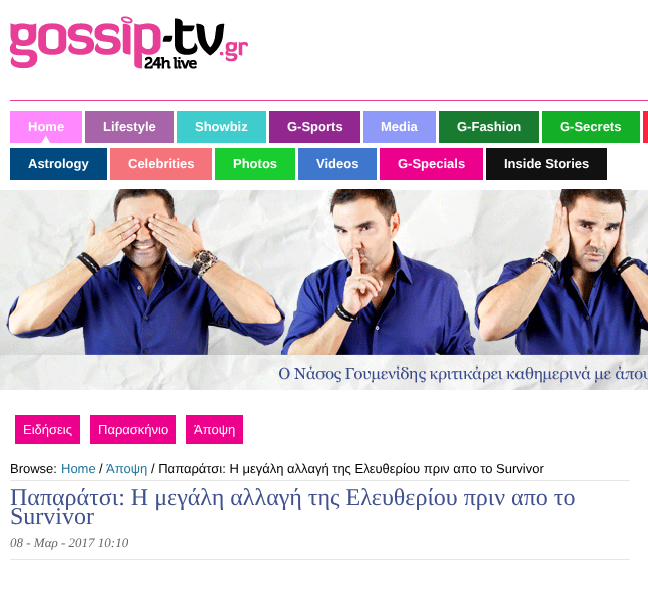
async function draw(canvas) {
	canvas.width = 648;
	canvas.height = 589;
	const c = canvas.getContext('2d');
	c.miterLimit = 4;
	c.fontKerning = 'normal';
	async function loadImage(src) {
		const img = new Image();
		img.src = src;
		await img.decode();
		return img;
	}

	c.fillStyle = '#fff';
	c.fillRect(0, 0, 648, 589);
	c.fillStyle = '#e73e97';
	c.fillRect(10, 100, 638, 1);
	c.drawImage(await loadImage('img1.png'), 10, 16, 238, 53);
	c.fillStyle = '#f8f';
	c.fillRect(10, 111, 72, 32);
	c.drawImage(await loadImage('img2.png'), 41, 135, 9, 8);
	c.font = 'bold 13px Liberation Sans';
	c.fillStyle = '#fff';
	c.fillText('Home', 28, 131);
	c.fillStyle = '#a864a8';
	c.fillRect(85, 111, 89, 32);
	c.fillStyle = '#fff';
	c.fillText('Lifestyle', 103, 131);
	c.fillStyle = '#3fcccd';
	c.fillRect(177, 111, 89, 32);
	c.fillStyle = '#fff';
	c.fillText('Showbiz', 195, 131);
	c.fillStyle = '#92278f';
	c.fillRect(269, 111, 91, 32);
	c.fillStyle = '#fff';
	c.fillText('G-Sports', 287, 131);
	c.fillStyle = '#8f99f8';
	c.fillRect(363, 111, 73, 32);
	c.fillStyle = '#fff';
	c.fillText('Media', 381, 131);
	c.fillStyle = '#197b30';
	c.fillRect(439, 111, 100, 32);
	c.fillStyle = '#fff';
	c.fillText('G-Fashion', 457, 131);
	c.fillStyle = '#13af27';
	c.fillRect(542, 111, 98, 32);
	c.fillStyle = '#fff';
	c.fillText('G-Secrets', 560, 131);
	c.fillStyle = '#ff223f';
	c.fillRect(643, 111, 5, 32);
	c.fillStyle = '#004a80';
	c.fillRect(10, 148, 97, 32);
	c.fillStyle = '#fff';
	c.fillText('Astrology', 28, 168);
	c.fillStyle = '#f5737a';
	c.fillRect(110, 148, 102, 32);
	c.fillStyle = '#fff';
	c.fillText('Celebrities', 128, 168);
	c.fillStyle = '#19cc30';
	c.fillRect(215, 148, 80, 32);
	c.fillStyle = '#fff';
	c.fillText('Photos', 233, 168);
	c.fillStyle = '#3f77cd';
	c.fillRect(298, 148, 79, 32);
	c.fillStyle = '#fff';
	c.fillText('Videos', 316, 168);
	c.fillStyle = '#ec008c';
	c.fillRect(380, 148, 103, 32);
	c.fillStyle = '#fff';
	c.fillText('G-Specials', 398, 168);
	c.fillStyle = '#111';
	c.fillRect(486, 148, 121, 32);
	c.fillStyle = '#fff';
	c.fillText('Inside Stories', 504, 168);
	c.drawImage(await loadImage('img3.png'), 0, 189, 648, 201);
	c.fillStyle = '#ec008c';
	c.fillRect(15, 415, 65, 29);
	c.font = '13px Liberation Sans';
	c.fillStyle = '#fff';
	c.fillText('Ειδήσεις', 23, 434);
	c.fillStyle = '#ec008c';
	c.fillRect(90, 415, 86, 29);
	c.fillStyle = '#fff';
	c.fillText('Παρασκήνιο', 98, 434);
	c.fillStyle = '#ec008c';
	c.fillRect(186, 415, 57, 29);
	c.fillStyle = '#fff';
	c.fillText('Άποψη', 194, 434);
	c.fillStyle = '#000';
	c.fillText('Browse:', 10, 473);
	c.fillStyle = '#21759b';
	c.fillText('Home', 61, 473);
	c.fillStyle = '#000';
	c.fillText('/', 99, 473);
	c.fillStyle = '#21759b';
	c.fillText('Άποψη', 106, 473);
	c.fillStyle = '#000';
	c.fillText('/ Παπαράτσι: Η μεγάλη αλλαγή της Ελευθερίου πριν απο το Survivor', 151, 473);
	c.fillStyle = '#e6e6e6';
	c.fillRect(10, 480, 620, 1);
	c.font = '24px Liberation Serif';
	c.fillStyle = '#40518e';
	c.fillText('Παπαράτσι: Η μεγάλη αλλαγή της Ελευθερίου πριν απο το', 10, 505);
	c.fillText('Survivor', 10, 524);
	c.fillStyle = '#e6e6e6';
	c.fillRect(10, 559, 620, 1);
	c.font = 'italic 13px Liberation Serif';
	c.fillStyle = '#666';
	c.fillText('08 - Μαρ - 2017 10:10', 10, 547);
}

draw(document.querySelector('canvas'));
